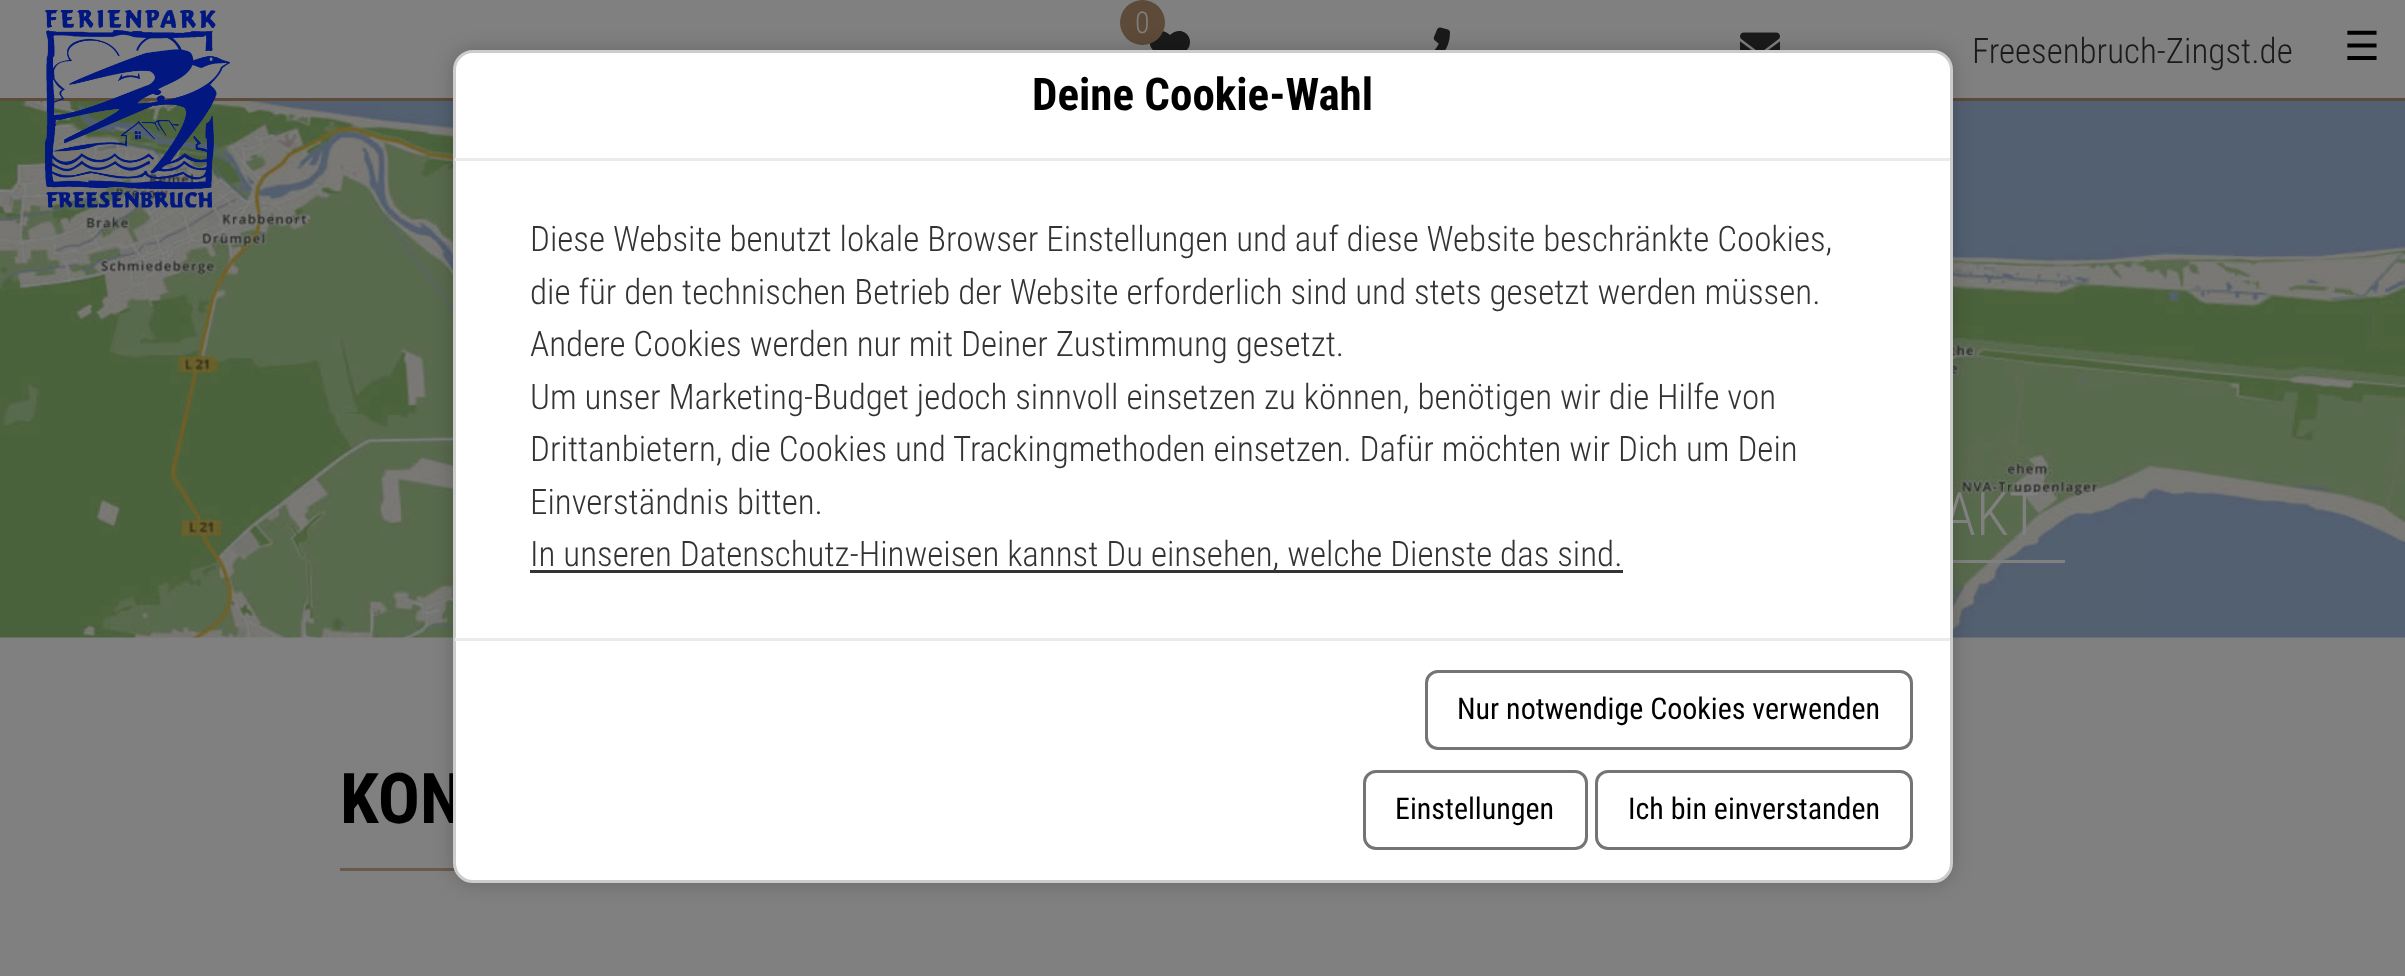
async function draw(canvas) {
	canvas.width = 2405;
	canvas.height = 976;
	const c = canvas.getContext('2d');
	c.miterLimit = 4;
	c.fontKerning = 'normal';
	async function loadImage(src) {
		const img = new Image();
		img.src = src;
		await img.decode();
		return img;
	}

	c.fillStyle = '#808080';
	c.fillRect(0, 0, 2405, 976);
	c.fillStyle = '#5d4a38';
	c.fillRect(0, 98, 2405, 3);
	c.fillStyle = '#1a1a1a';
	c.beginPath();
	c.moveTo(1154, 51);
	c.lineTo(1168, 64);
	c.lineTo(1154, 51);
	c.lineTo(1165, 62);
	c.bezierCurveTo(1172, 68, 1173, 64, 1179, 58);
	c.bezierCurveTo(1183, 54, 1187, 51, 1189, 47);
	c.bezierCurveTo(1194, 35, 1180, 25, 1170, 35);
	c.bezierCurveTo(1158, 23, 1142, 40, 1154, 51);
	c.closePath();
	c.fill();
	c.fillStyle = '#5d4a38';
	c.beginPath();
	c.arc(1142.5, 22.5, 22.5, 0, 2 * Math.PI);
	c.fill();
	c.font = '300 30px Roboto Condensed';
	c.fillStyle = '#808080';
	c.fillText('0', 1135, 33);
	c.drawImage(await loadImage('img1.png'), 1433, 27, 17, 23);
	c.drawImage(await loadImage('img2.png'), 1740, 32, 40, 18);
	c.font = '300 35px Roboto Condensed';
	c.fillStyle = '#1a1a1a';
	c.fillText('Freesenbruch-Zingst.de', 1972, 63);
	c.drawImage(await loadImage('img4.png'), 0, 101, 2405, 537);
	c.drawImage(await loadImage('img3.png'), 45, 10, 185, 198);
	c.font = '40px DejaVu Sans';
	c.fillStyle = '#000';
	c.fillText('☰', 2344, 60);
	c.fillStyle = '#808080';
	c.fillRect(1953, 560, 112, 3);
	c.fillStyle = '#685b4e';
	c.fillRect(340, 868, 115, 3);
	c.fillStyle = '#00000033';
	c.filter = 'blur(10px)';
	c.beginPath();
	c.roundRect(453, 50, 1500, 833, 20);
	c.fill();
	c.filter = 'none';
	c.font = '300 60px Roboto Condensed';
	c.fillStyle = '#808080';
	c.fillText('AKT', 1943, 535);
	c.font = 'bold 70px Roboto Condensed';
	c.fillStyle = '#000';
	c.fillText('KON', 340, 823);
	c.fillStyle = '#fff';
	c.beginPath();
	c.roundRect(454.5, 51.5, 1497, 830, 18.5);
	c.fill();
	c.strokeStyle = '#ccc';
	c.lineWidth = 3;
	c.stroke();
	c.fillStyle = '#ebebeb';
	c.fillRect(455, 158, 1495, 3);
	c.font = 'bold 45px Roboto Condensed';
	c.fillStyle = '#000';
	c.fillText('Deine Cookie-Wahl', 1032, 110);
	c.font = '300 35px Roboto Condensed';
	c.fillStyle = '#333';
	for (const [text, x, y] of [
		['Diese Website benutzt lokale Browser Einstellungen und auf diese Website beschränkte Cookies,', 530, 251],
		['die für den technischen Betrieb der Website erforderlich sind und stets gesetzt werden müssen.', 530, 304],
		['Andere Cookies werden nur mit Deiner Zustimmung gesetzt.', 530, 356],
		['Um unser Marketing-Budget jedoch sinnvoll einsetzen zu können, benötigen wir die Hilfe von', 530, 409],
		['Drittanbietern, die Cookies und Trackingmethoden einsetzen. Dafür möchten wir Dich um Dein', 530, 461],
		['Einverständnis bitten.', 530, 514],
	]) {
		c.fillText(text, x, y);
	}
	c.fillRect(530, 570, 1093, 3);
	c.fillText('In unseren Datenschutz-Hinweisen kannst Du einsehen, welche Dienste das sind.', 530, 566);
	c.fillStyle = '#ebebeb';
	c.fillRect(455, 638, 1495, 3);
	c.beginPath();
	c.roundRect(1426.5, 671.5, 485, 77, 11.5);
	c.strokeStyle = '#747474';
	c.stroke();
	c.font = '30px Roboto Condensed';
	c.fillStyle = '#000';
	c.fillText('Nur notwendige Cookies verwenden', 1457, 719);
	c.beginPath();
	c.roundRect(1364.5, 771.5, 222, 77, 11.5);
	c.stroke();
	c.fillText('Einstellungen', 1395, 819);
	c.beginPath();
	c.roundRect(1596.5, 771.5, 315, 77, 11.5);
	c.stroke();
	c.fillText('Ich bin einverstanden', 1628, 819);
}

draw(document.querySelector('canvas'));
